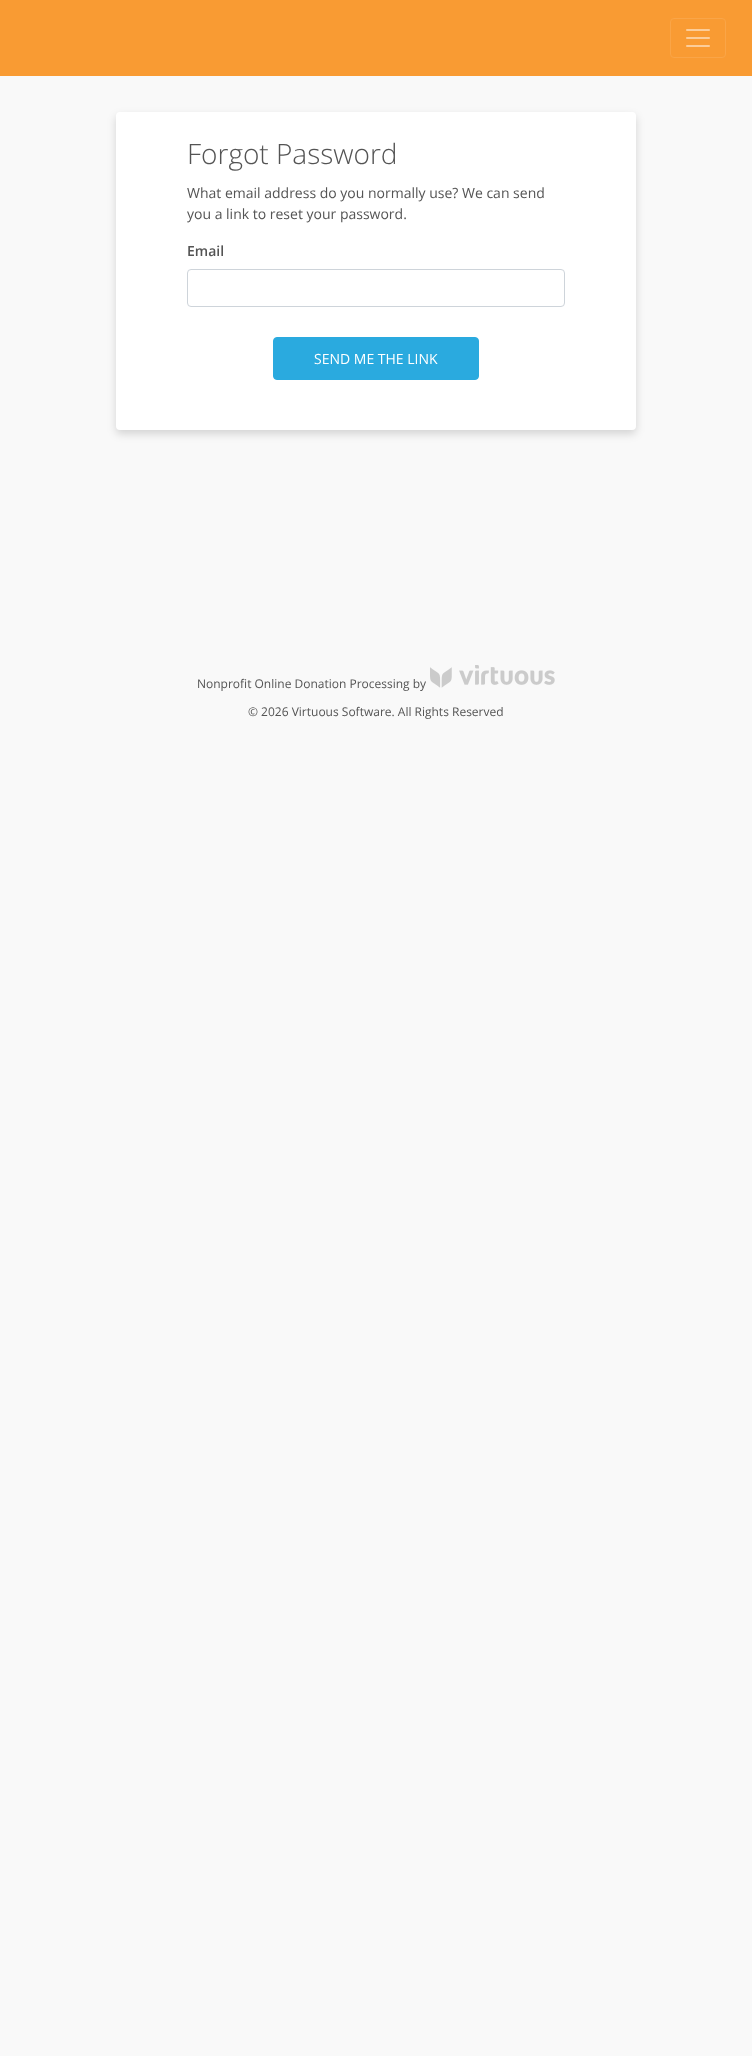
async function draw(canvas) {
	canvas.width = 752;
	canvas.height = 2056;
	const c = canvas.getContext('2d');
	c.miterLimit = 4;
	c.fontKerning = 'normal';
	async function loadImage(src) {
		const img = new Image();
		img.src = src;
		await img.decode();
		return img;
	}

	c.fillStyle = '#f9f9f9';
	c.fillRect(0, 0, 752, 2056);
	c.fillStyle = '#f99b33';
	c.fillRect(0, 0, 752, 76);
	c.beginPath();
	c.roundRect(670.5, 18.5, 55, 39, 3.5);
	c.strokeStyle = '#faa547';
	c.stroke();
	c.drawImage(await loadImage('img1.png'), 686, 29, 24, 18);
	c.fillStyle = '#00000026';
	c.filter = 'blur(4px)';
	c.beginPath();
	c.roundRect(116, 116, 520, 318, 4);
	c.fill();
	c.filter = 'none';
	c.fillStyle = '#fff';
	c.beginPath();
	c.roundRect(116, 112, 520, 318, 4);
	c.fill();
	c.font = '300 28px Open Sans';
	c.fillStyle = '#545454';
	c.fillText('Forgot Password', 187, 164);
	c.font = '14px Open Sans';
	c.fillText('What email address do you normally use? We can send', 187, 198);
	c.fillText('you a link to reset your password.', 187, 219);
	c.font = '600 14px Open Sans';
	c.fillText('Email', 187, 256);
	c.beginPath();
	c.roundRect(187.5, 269.5, 377, 37, 3.5);
	c.strokeStyle = '#ced4da';
	c.stroke();
	c.fillStyle = '#2aaadf';
	c.beginPath();
	c.roundRect(273.5, 337.5, 205, 42, 3.5);
	c.fill();
	c.strokeStyle = '#2aaadf';
	c.stroke();
	c.font = '14px Open Sans';
	c.fillStyle = '#fff';
	c.fillText('SEND ME THE LINK', 314, 364);
	c.font = '12px Open Sans';
	c.fillStyle = '#545454';
	c.fillText('Nonprofit Online Donation Processing by', 197, 688);
	c.drawImage(await loadImage('img2.png'), 430, 665, 125, 23);
	c.fillText('© 2026 Virtuous Software. All Rights Reserved', 248, 716);
}

draw(document.querySelector('canvas'));
